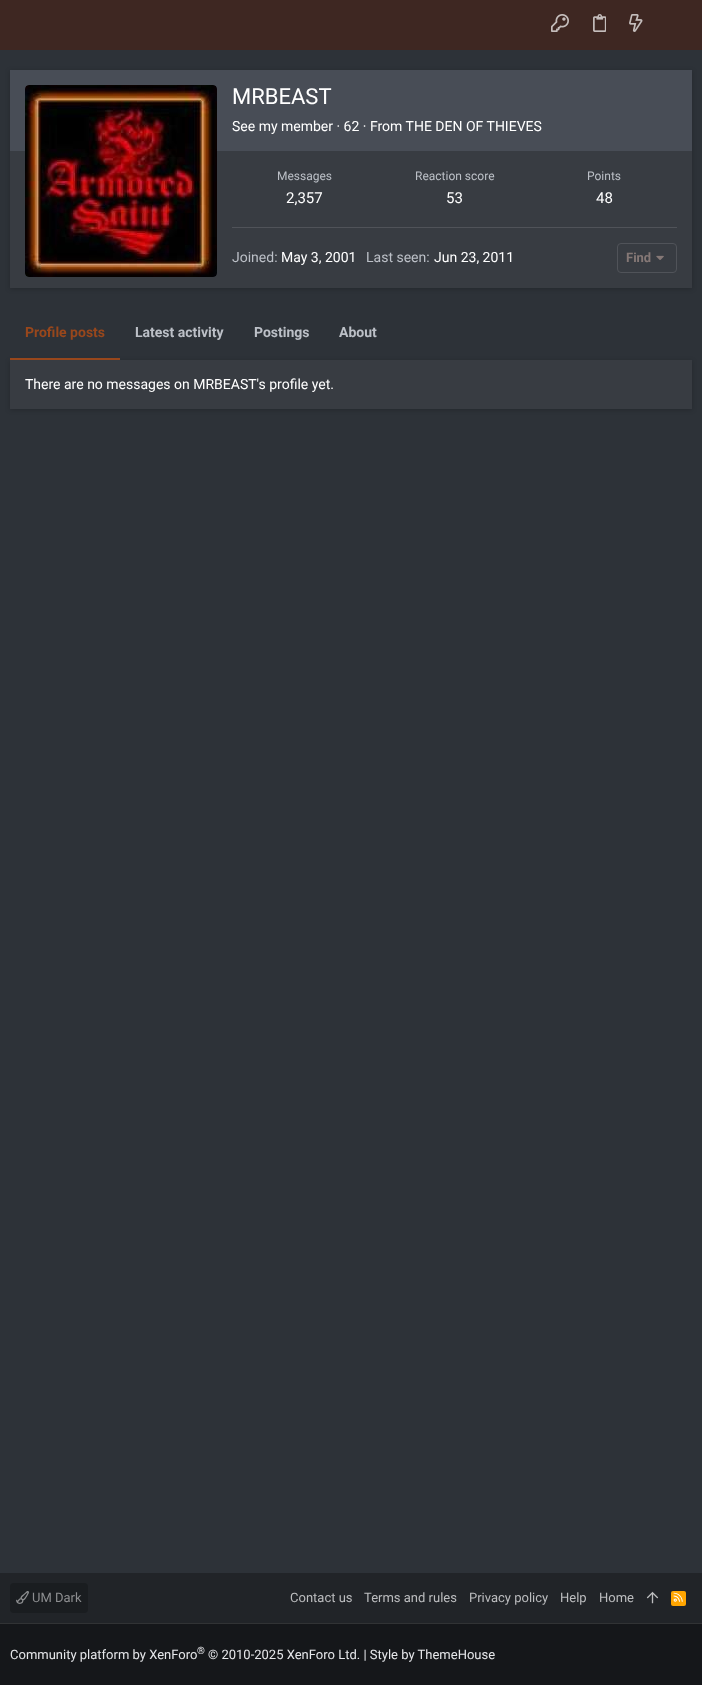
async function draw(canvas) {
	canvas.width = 702;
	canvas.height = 1685;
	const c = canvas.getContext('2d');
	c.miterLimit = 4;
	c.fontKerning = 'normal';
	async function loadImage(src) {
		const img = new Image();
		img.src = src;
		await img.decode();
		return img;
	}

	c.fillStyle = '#2d3238';
	c.fillRect(0, 0, 702, 1685);
	c.fillStyle = '#3e2722';
	c.fillRect(0, 0, 702, 50);
	c.drawImage(await loadImage('img1.png'), 551, 14, 18, 18);
	c.drawImage(await loadImage('img2.png'), 593, 14, 13, 18);
	c.drawImage(await loadImage('img3.png'), 629, 14, 14, 18);
	c.fillStyle = '#00000033';
	c.filter = 'blur(2.5px)';
	c.beginPath();
	c.rect(10, 71, 682, 218);
	c.fill();
	c.filter = 'none';
	c.fillStyle = '#383c42';
	c.fillRect(10, 151, 682, 137);
	c.fillStyle = '#484d56';
	c.fillRect(10, 70, 682, 81);
	c.drawImage(await loadImage('img4.png'), 25, 85, 192, 192);
	c.font = '22px Roboto';
	c.fillStyle = '#fff';
	c.fillText('MRBEAST', 232, 104);
	c.font = '14px Roboto';
	c.fillText('See my member · 62 · From THE DEN OF THIEVES', 232, 131);
	c.font = '12px Roboto';
	c.fillStyle = '#bcc0c7';
	c.fillText('Messages', 277, 180);
	c.font = '15px Roboto';
	c.fillStyle = '#fff';
	c.fillText('2,357', 286, 203);
	c.font = '12px Roboto';
	c.fillStyle = '#bcc0c7';
	c.fillText('Reaction score', 415, 180);
	c.font = '15px Roboto';
	c.fillStyle = '#fff';
	c.fillText('53', 446, 203);
	c.font = '12px Roboto';
	c.fillStyle = '#bcc0c7';
	c.fillText('Points', 587, 180);
	c.font = '15px Roboto';
	c.fillStyle = '#fff';
	c.fillText('48', 596, 203);
	c.fillStyle = '#505359';
	c.fillRect(232, 227, 445, 1);
	c.font = '14px Roboto';
	c.fillStyle = '#bcc0c7';
	c.fillText('Joined:', 232, 262);
	c.fillStyle = '#fff';
	c.fillText('May 3, 2001', 281, 262);
	c.fillStyle = '#bcc0c7';
	c.fillText('Last seen:', 366, 262);
	c.fillStyle = '#fff';
	c.fillText('Jun 23, 2011', 434, 262);
	c.beginPath();
	c.roundRect(617.5, 243.5, 59, 29, 3.5);
	c.strokeStyle = '#505359';
	c.stroke();
	c.font = 'bold 13px Roboto';
	c.fillStyle = '#857876';
	c.fillText('Find', 626, 262);
	c.drawImage(await loadImage('img5.png'), 656, 255, 8, 5);
	c.fillStyle = '#00000033';
	c.filter = 'blur(2.5px)';
	c.beginPath();
	c.rect(10, 361, 682, 49);
	c.fill();
	c.filter = 'none';
	c.fillStyle = '#98471c';
	c.fillRect(10, 358, 110, 2);
	c.font = 'bold 14px Roboto';
	c.fillText('Profile posts', 25, 337);
	c.fillStyle = '#bcc0c7';
	for (const [text, x, y] of [
		['Latest activity', 135, 337],
		['Postings', 254, 337],
		['About', 339, 337],
	]) {
		c.fillText(text, x, y);
	}
	c.fillStyle = '#383c42';
	c.fillRect(10, 360, 682, 49);
	c.font = '14px Roboto';
	c.fillStyle = '#fff';
	c.fillText('There are no messages on MRBEAST\'s profile yet.', 25, 389);
	c.fillStyle = '#212428';
	c.fillRect(0, 1573, 702, 50);
	c.fillStyle = '#1a1d20';
	c.beginPath();
	c.roundRect(10, 1583, 78, 30, 4);
	c.fill();
	c.drawImage(await loadImage('img6.png'), 16, 1591, 13, 13);
	c.font = '13px Roboto';
	c.fillStyle = '#8d8e90';
	c.fillText('UM Dark', 32, 1602);
	c.fillStyle = '#bcbdbf';
	for (const [text, x, y] of [
		['Contact us', 290, 1602],
		['Terms and rules', 364, 1602],
		['Privacy policy', 469, 1602],
		['Help', 560, 1602],
		['Home', 599, 1602],
	]) {
		c.fillText(text, x, y);
	}
	c.drawImage(await loadImage('img7.png'), 646, 1591, 13, 13);
	c.fillStyle = '#ffa500';
	c.beginPath();
	c.roundRect(671, 1591, 15, 15, 2);
	c.fill();
	c.drawImage(await loadImage('img8.png'), 673, 1592, 10, 10);
	c.fillStyle = '#15171a';
	c.fillRect(0, 1624, 702, 61);
	c.fillStyle = '#313335';
	c.fillRect(0, 1623, 702, 1);
	c.fillStyle = '#e6e7ea';
	c.fillText('Community platform by XenForo', 10, 1659);
	c.font = '10px Roboto';
	c.fillText('®', 197, 1654);
	c.font = '13px Roboto';
	c.fillText('© 2010-2025 XenForo Ltd. | Style by ThemeHouse', 208, 1659);
}

draw(document.querySelector('canvas'));
